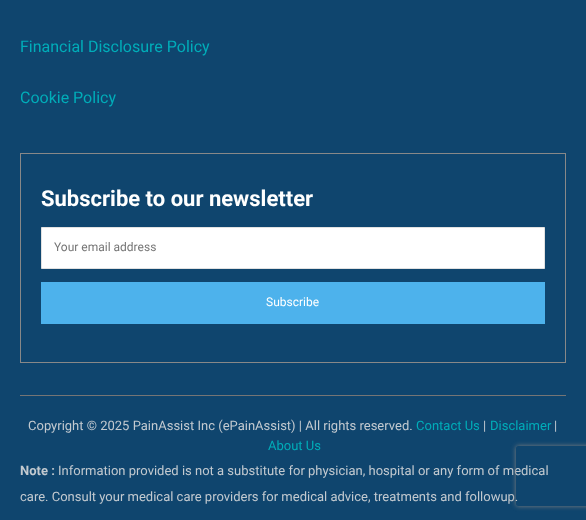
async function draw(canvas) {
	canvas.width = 586;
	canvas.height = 520;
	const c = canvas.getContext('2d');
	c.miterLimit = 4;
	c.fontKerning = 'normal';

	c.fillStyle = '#0f456e';
	c.fillRect(0, 0, 586, 520);
	c.font = '16px Roboto';
	c.fillStyle = '#01adb9';
	c.fillText('Financial Disclosure Policy', 20, 52);
	c.fillText('Cookie Policy', 20, 103);
	c.strokeStyle = '#888';
	c.strokeRect(20.5, 153.5, 545, 209);
	c.font = 'bold 22px Roboto';
	c.fillStyle = '#fff';
	c.fillText('Subscribe to our newsletter', 41, 206);
	c.beginPath();
	c.rect(41.5, 227.5, 503, 41);
	c.fill();
	c.strokeStyle = '#e1e1e1';
	c.stroke();
	c.font = '12px Roboto';
	c.fillStyle = '#757575';
	c.fillText('Your email address', 54, 251);
	c.fillStyle = '#4db2ec';
	c.fillRect(41, 282, 504, 42);
	c.fillStyle = '#fff';
	c.fillText('Subscribe', 266, 306);
	c.fillStyle = '#757575';
	c.fillRect(20, 395, 546, 1);
	c.font = '13px Roboto';
	c.fillStyle = '#c3cad0';
	c.fillText('Copyright © 2025 PainAssist Inc (ePainAssist) | All rights reserved.', 28, 430);
	c.fillStyle = '#01adb9';
	c.fillText('Contact Us', 416, 430);
	c.fillStyle = '#c3cad0';
	c.fillText('|', 483, 430);
	c.fillStyle = '#01adb9';
	c.fillText('Disclaimer', 490, 430);
	c.fillStyle = '#c3cad0';
	c.fillText('|', 554, 430);
	c.fillStyle = '#01adb9';
	c.fillText('About Us', 268, 450);
	c.font = 'bold 13px Roboto';
	c.fillStyle = '#c3cad0';
	c.fillText('Note :', 20, 475);
	c.font = '13px Roboto';
	c.fillText('Information provided is not a substitute for physician, hospital or any form of medical', 58, 475);
	c.fillText('care. Consult your medical care providers for medical advice, treatments and followup.', 20, 501);
	c.save();
	c.beginPath();
	c.moveTo(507, 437);
	c.lineTo(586, 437);
	c.lineTo(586, 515);
	c.lineTo(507, 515);
	c.closePath();
	c.moveTo(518, 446);
	c.lineTo(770, 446);
	c.bezierCurveTo(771, 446, 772, 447, 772, 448);
	c.lineTo(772, 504);
	c.bezierCurveTo(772, 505, 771, 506, 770, 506);
	c.lineTo(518, 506);
	c.bezierCurveTo(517, 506, 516, 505, 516, 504);
	c.lineTo(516, 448);
	c.bezierCurveTo(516, 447, 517, 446, 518, 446);
	c.closePath();
	c.clip('evenodd');
	c.fillStyle = '#808080';
	c.filter = 'blur(2.5px)';
	c.beginPath();
	c.roundRect(516, 446, 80, 60, 2);
	c.fill();
	c.filter = 'none';
	c.restore();
}

draw(document.querySelector('canvas'));
